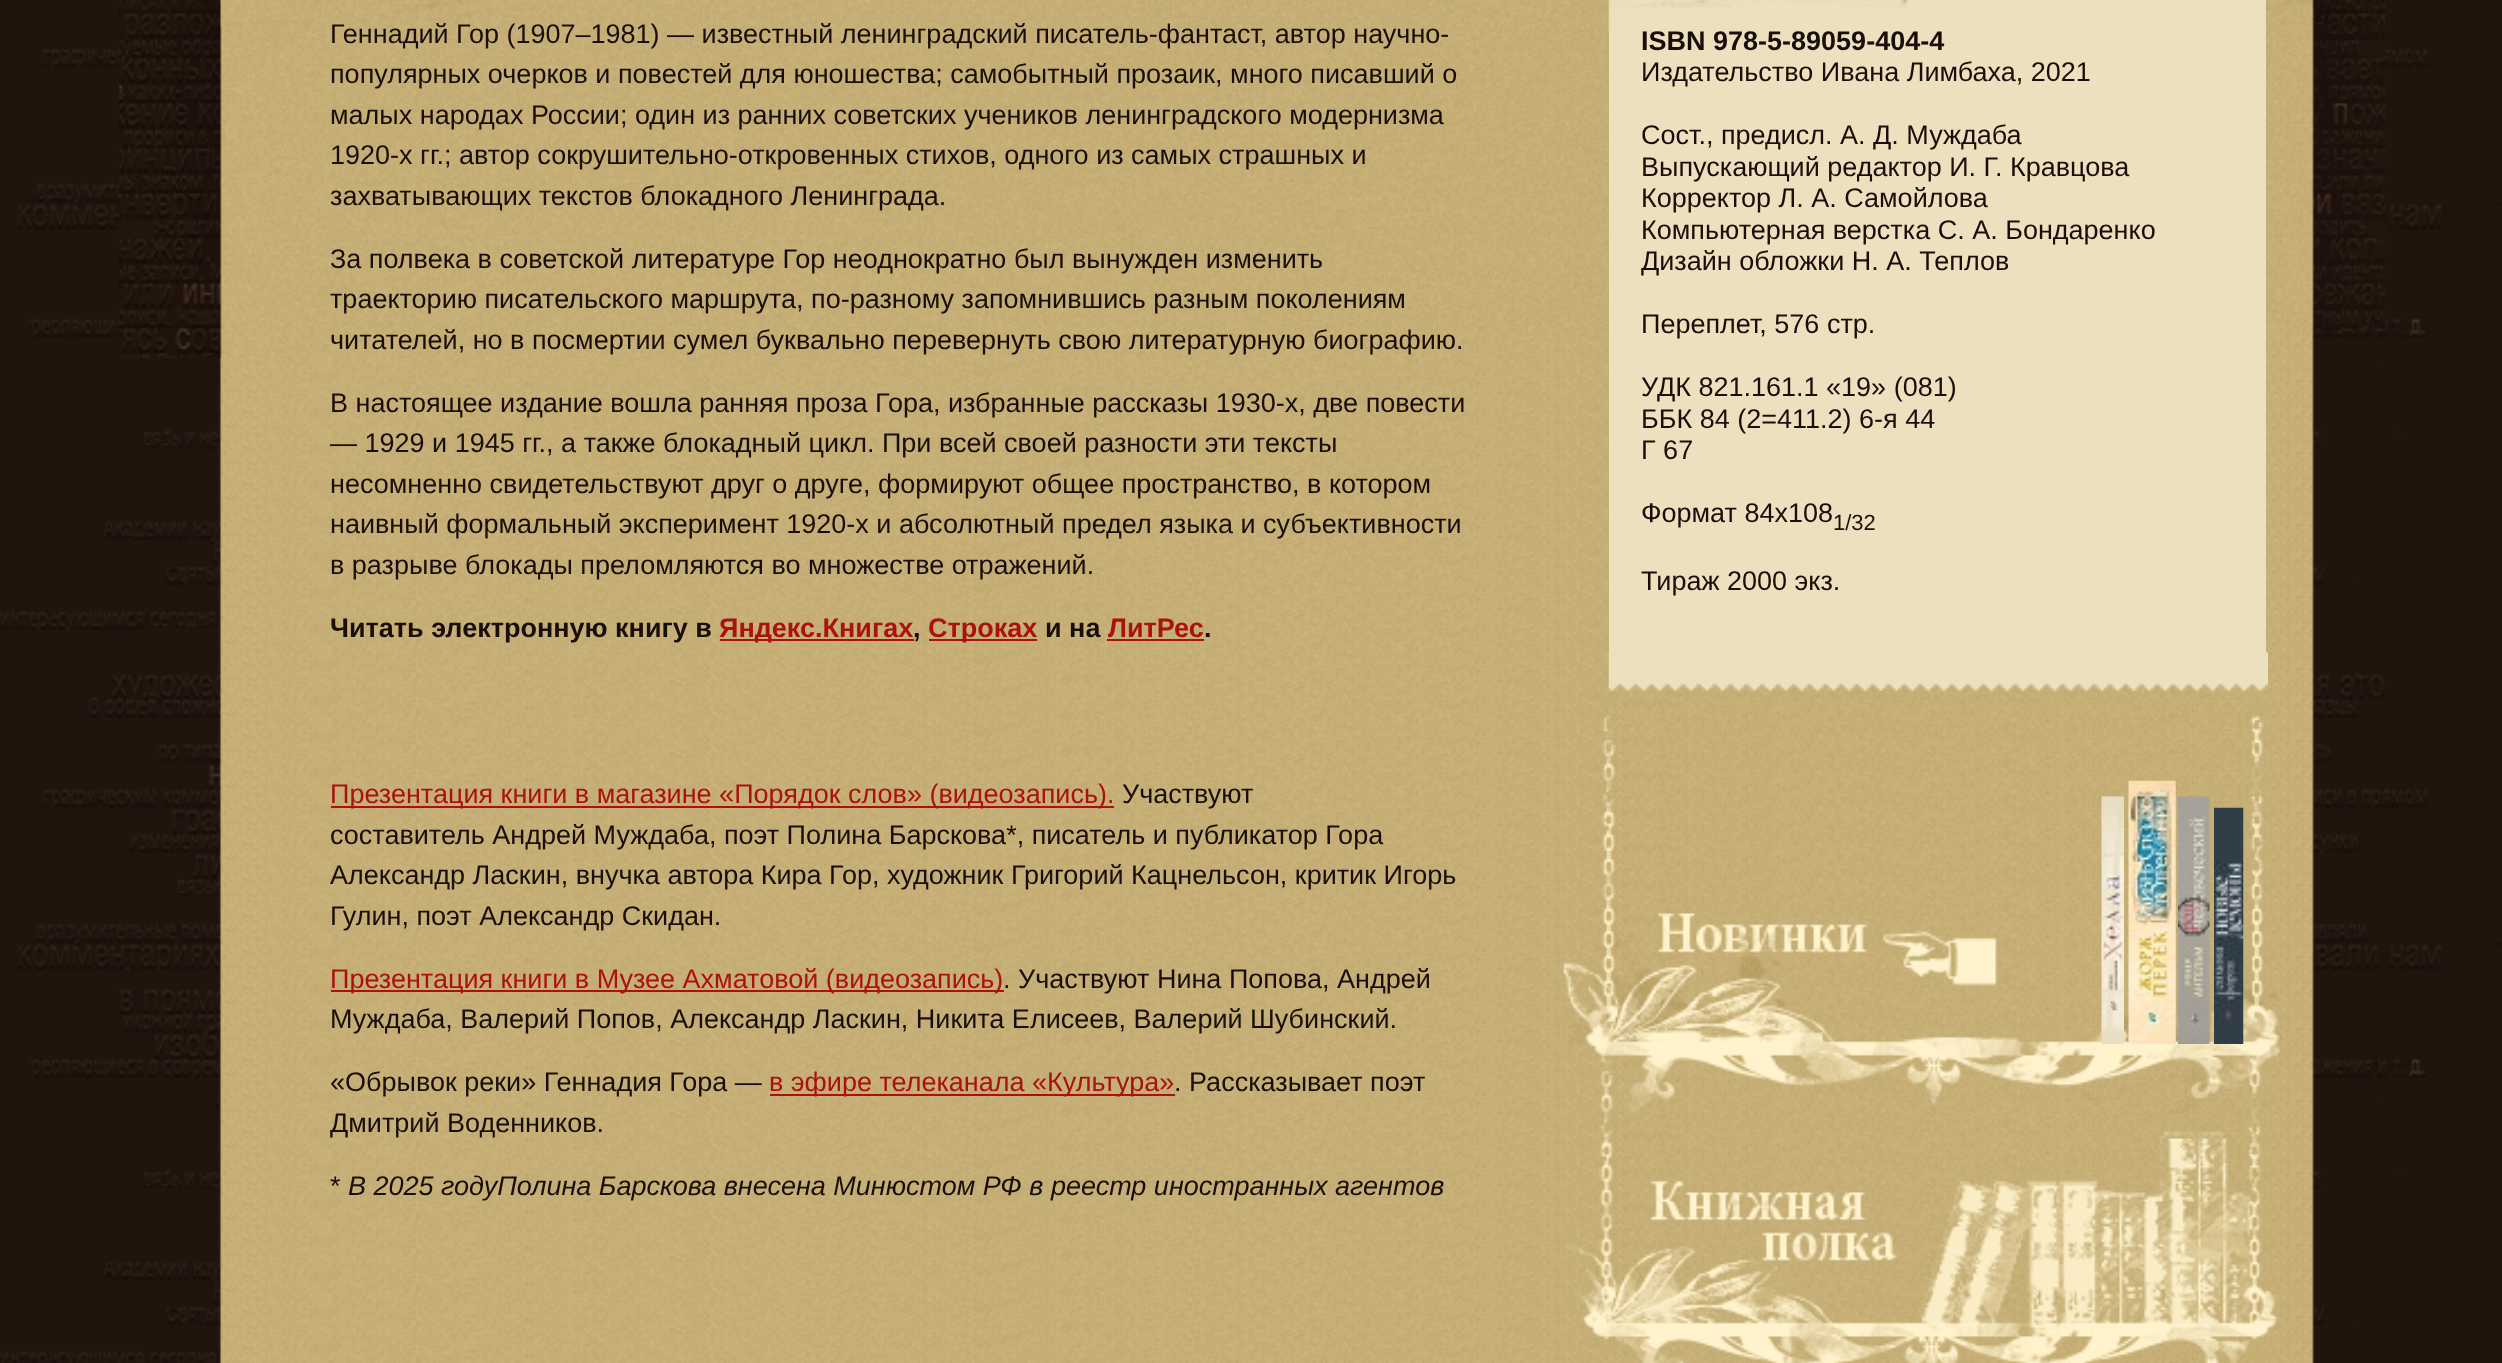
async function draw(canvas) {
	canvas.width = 2502;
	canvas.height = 1363;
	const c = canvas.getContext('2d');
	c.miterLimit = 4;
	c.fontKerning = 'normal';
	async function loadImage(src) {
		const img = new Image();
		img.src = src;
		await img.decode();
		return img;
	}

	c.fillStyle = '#fff';
	c.fillRect(0, 0, 2502, 1363);
	c.drawImage(await loadImage('img1.png'), 0, 0, 222, 1363);
	c.drawImage(await loadImage('img2.png'), 2312, 0, 190, 1363);
	c.drawImage(await loadImage('img3.png'), 219, 330, 2095, 1033);
	c.drawImage(await loadImage('img4.png'), 119, 0, 1166, 358);
	c.drawImage(await loadImage('img5.png'), 1222, 27, 1163, 304);
	c.drawImage(await loadImage('img6.png'), 119, 0, 2266, 27);
	c.drawImage(await loadImage('img7.png'), 2285, 0, 28, 5);
	c.font = '27px Liberation Sans';
	c.fillStyle = '#190e0a';
	for (const [text, x, y] of [
		['Геннадий Гор (1907–1981) — известный ленинградский писатель-фантаст, автор научно-', 330, 43],
		['популярных очерков и повестей для юношества; самобытный прозаик, много писавший о', 330, 83],
		['малых народах России; один из ранних советских учеников ленинградского модернизма', 330, 124],
		['1920-х гг.; автор сокрушительно-откровенных стихов, одного из самых страшных и', 330, 164],
		['захватывающих текстов блокадного Ленинграда.', 330, 205],
		['За полвека в советской литературе Гор неоднократно был вынужден изменить', 330, 268],
		['траекторию писательского маршрута, по-разному запомнившись разным поколениям', 330, 308],
		['читателей, но в посмертии сумел буквально перевернуть свою литературную биографию.', 330, 349],
		['В настоящее издание вошла ранняя проза Гора, избранные рассказы 1930-х, две повести', 330, 412],
		['— 1929 и 1945 гг., а также блокадный цикл. При всей своей разности эти тексты', 330, 452],
		['несомненно свидетельствуют друг о друге, формируют общее пространство, в котором', 330, 493],
		['наивный формальный эксперимент 1920-х и абсолютный предел языка и субъективности', 330, 533],
		['в разрыве блокады преломляются во множестве отражений.', 330, 574],
	]) {
		c.fillText(text, x, y);
	}
	c.font = 'bold 27px Liberation Sans';
	c.fillText('Читать электронную книгу в', 330, 637);
	c.fillStyle = '#ab1111';
	c.fillRect(720, 639, 194, 2);
	c.fillText('Яндекс.Книгах', 719, 637);
	c.fillStyle = '#190e0a';
	c.fillText(',', 913, 637);
	c.fillStyle = '#ab1111';
	c.fillRect(929, 639, 108, 2);
	c.fillText('Строках', 928, 637);
	c.fillStyle = '#190e0a';
	c.fillText('и на', 1045, 637);
	c.fillStyle = '#ab1111';
	c.fillText('ЛитРес', 1108, 637);
	c.fillStyle = '#190e0a';
	c.fillText('.', 1204, 637);
	c.fillStyle = '#ab1111';
	c.fillRect(1107, 639, 97, 2);
	c.fillRect(331, 806, 783, 2);
	c.font = '27px Liberation Sans';
	c.fillText('Презентация книги в магазине «Порядок слов» (видеозапись).', 330, 803);
	c.fillStyle = '#190e0a';
	for (const [text, x, y] of [
		['Участвуют', 1122, 803],
		['составитель Андрей Муждаба, поэт Полина Барскова*, писатель и публикатор Гора', 330, 844],
		['Александр Ласкин, внучка автора Кира Гор, художник Григорий Кацнельсон, критик Игорь', 330, 884],
		['Гулин, поэт Александр Скидан.', 330, 925],
	]) {
		c.fillText(text, x, y);
	}
	c.fillStyle = '#ab1111';
	c.fillRect(331, 990, 673, 2);
	c.fillText('Презентация книги в Музее Ахматовой (видеозапись)', 330, 988);
	c.fillStyle = '#190e0a';
	for (const [text, x, y] of [
		['. Участвуют Нина Попова, Андрей', 1003, 988],
		['Муждаба, Валерий Попов, Александр Ласкин, Никита Елисеев, Валерий Шубинский.', 330, 1028],
		['«Обрывок реки» Геннадия Гора —', 330, 1091],
	]) {
		c.fillText(text, x, y);
	}
	c.fillStyle = '#ab1111';
	c.fillRect(770, 1094, 405, 2);
	c.fillText('в эфире телеканала «Культура»', 769, 1091);
	c.fillStyle = '#190e0a';
	for (const [text, x, y] of [
		['. Рассказывает поэт', 1174, 1091],
		['Дмитрий Воденников.', 330, 1132],
		['*', 330, 1195],
	]) {
		c.fillText(text, x, y);
	}
	c.font = 'italic 27px Liberation Sans';
	c.fillText('В 2025 годуПолина Барскова внесена Минюстом РФ в реестр иностранных агентов', 348, 1195);
	c.fillStyle = '#ece0bf';
	c.fillRect(1609, 0, 657, 653);
	c.drawImage(await loadImage('img8.png'), 1608, 0, 658, 32);
	c.drawImage(await loadImage('img9.png'), 1608, 652, 660, 41);
	c.font = 'bold 27px Liberation Sans';
	c.fillStyle = '#190e0a';
	c.fillText('ISBN 978-5-89059-404-4', 1641, 50);
	c.font = '27px Liberation Sans';
	for (const [text, x, y] of [
		['Издательство Ивана Лимбаха, 2021', 1641, 81],
		['Сост., предисл. А. Д. Муждаба', 1641, 144],
		['Выпускающий редактор И. Г. Кравцова', 1641, 176],
		['Корректор Л. А. Самойлова', 1641, 207],
		['Компьютерная верстка С. А. Бондаренко', 1641, 239],
		['Дизайн обложки Н. А. Теплов', 1641, 270],
		['Переплет, 576 стр.', 1641, 333],
		['УДК 821.161.1 «19» (081)', 1641, 396],
		['ББК 84 (2=411.2) 6-я 44', 1641, 428],
		['Г 67', 1641, 459],
		['Формат 84x108', 1641, 522],
	]) {
		c.fillText(text, x, y);
	}
	c.font = '22px Liberation Sans';
	c.fillText('1/32', 1833, 530);
	c.font = '27px Liberation Sans';
	c.fillText('Тираж 2000 экз.', 1641, 590);
	c.drawImage(await loadImage('img15.png'), 1566, 1046, 712, 317);
	c.drawImage(await loadImage('img10.png'), 1563, 715, 719, 399);
	c.drawImage(await loadImage('img11.png'), 2101, 796, 23, 248);
	c.drawImage(await loadImage('img12.png'), 2128, 780, 48, 264);
	c.drawImage(await loadImage('img13.png'), 2178, 796, 32, 248);
	c.drawImage(await loadImage('img14.png'), 2214, 807, 30, 237);
}

draw(document.querySelector('canvas'));
